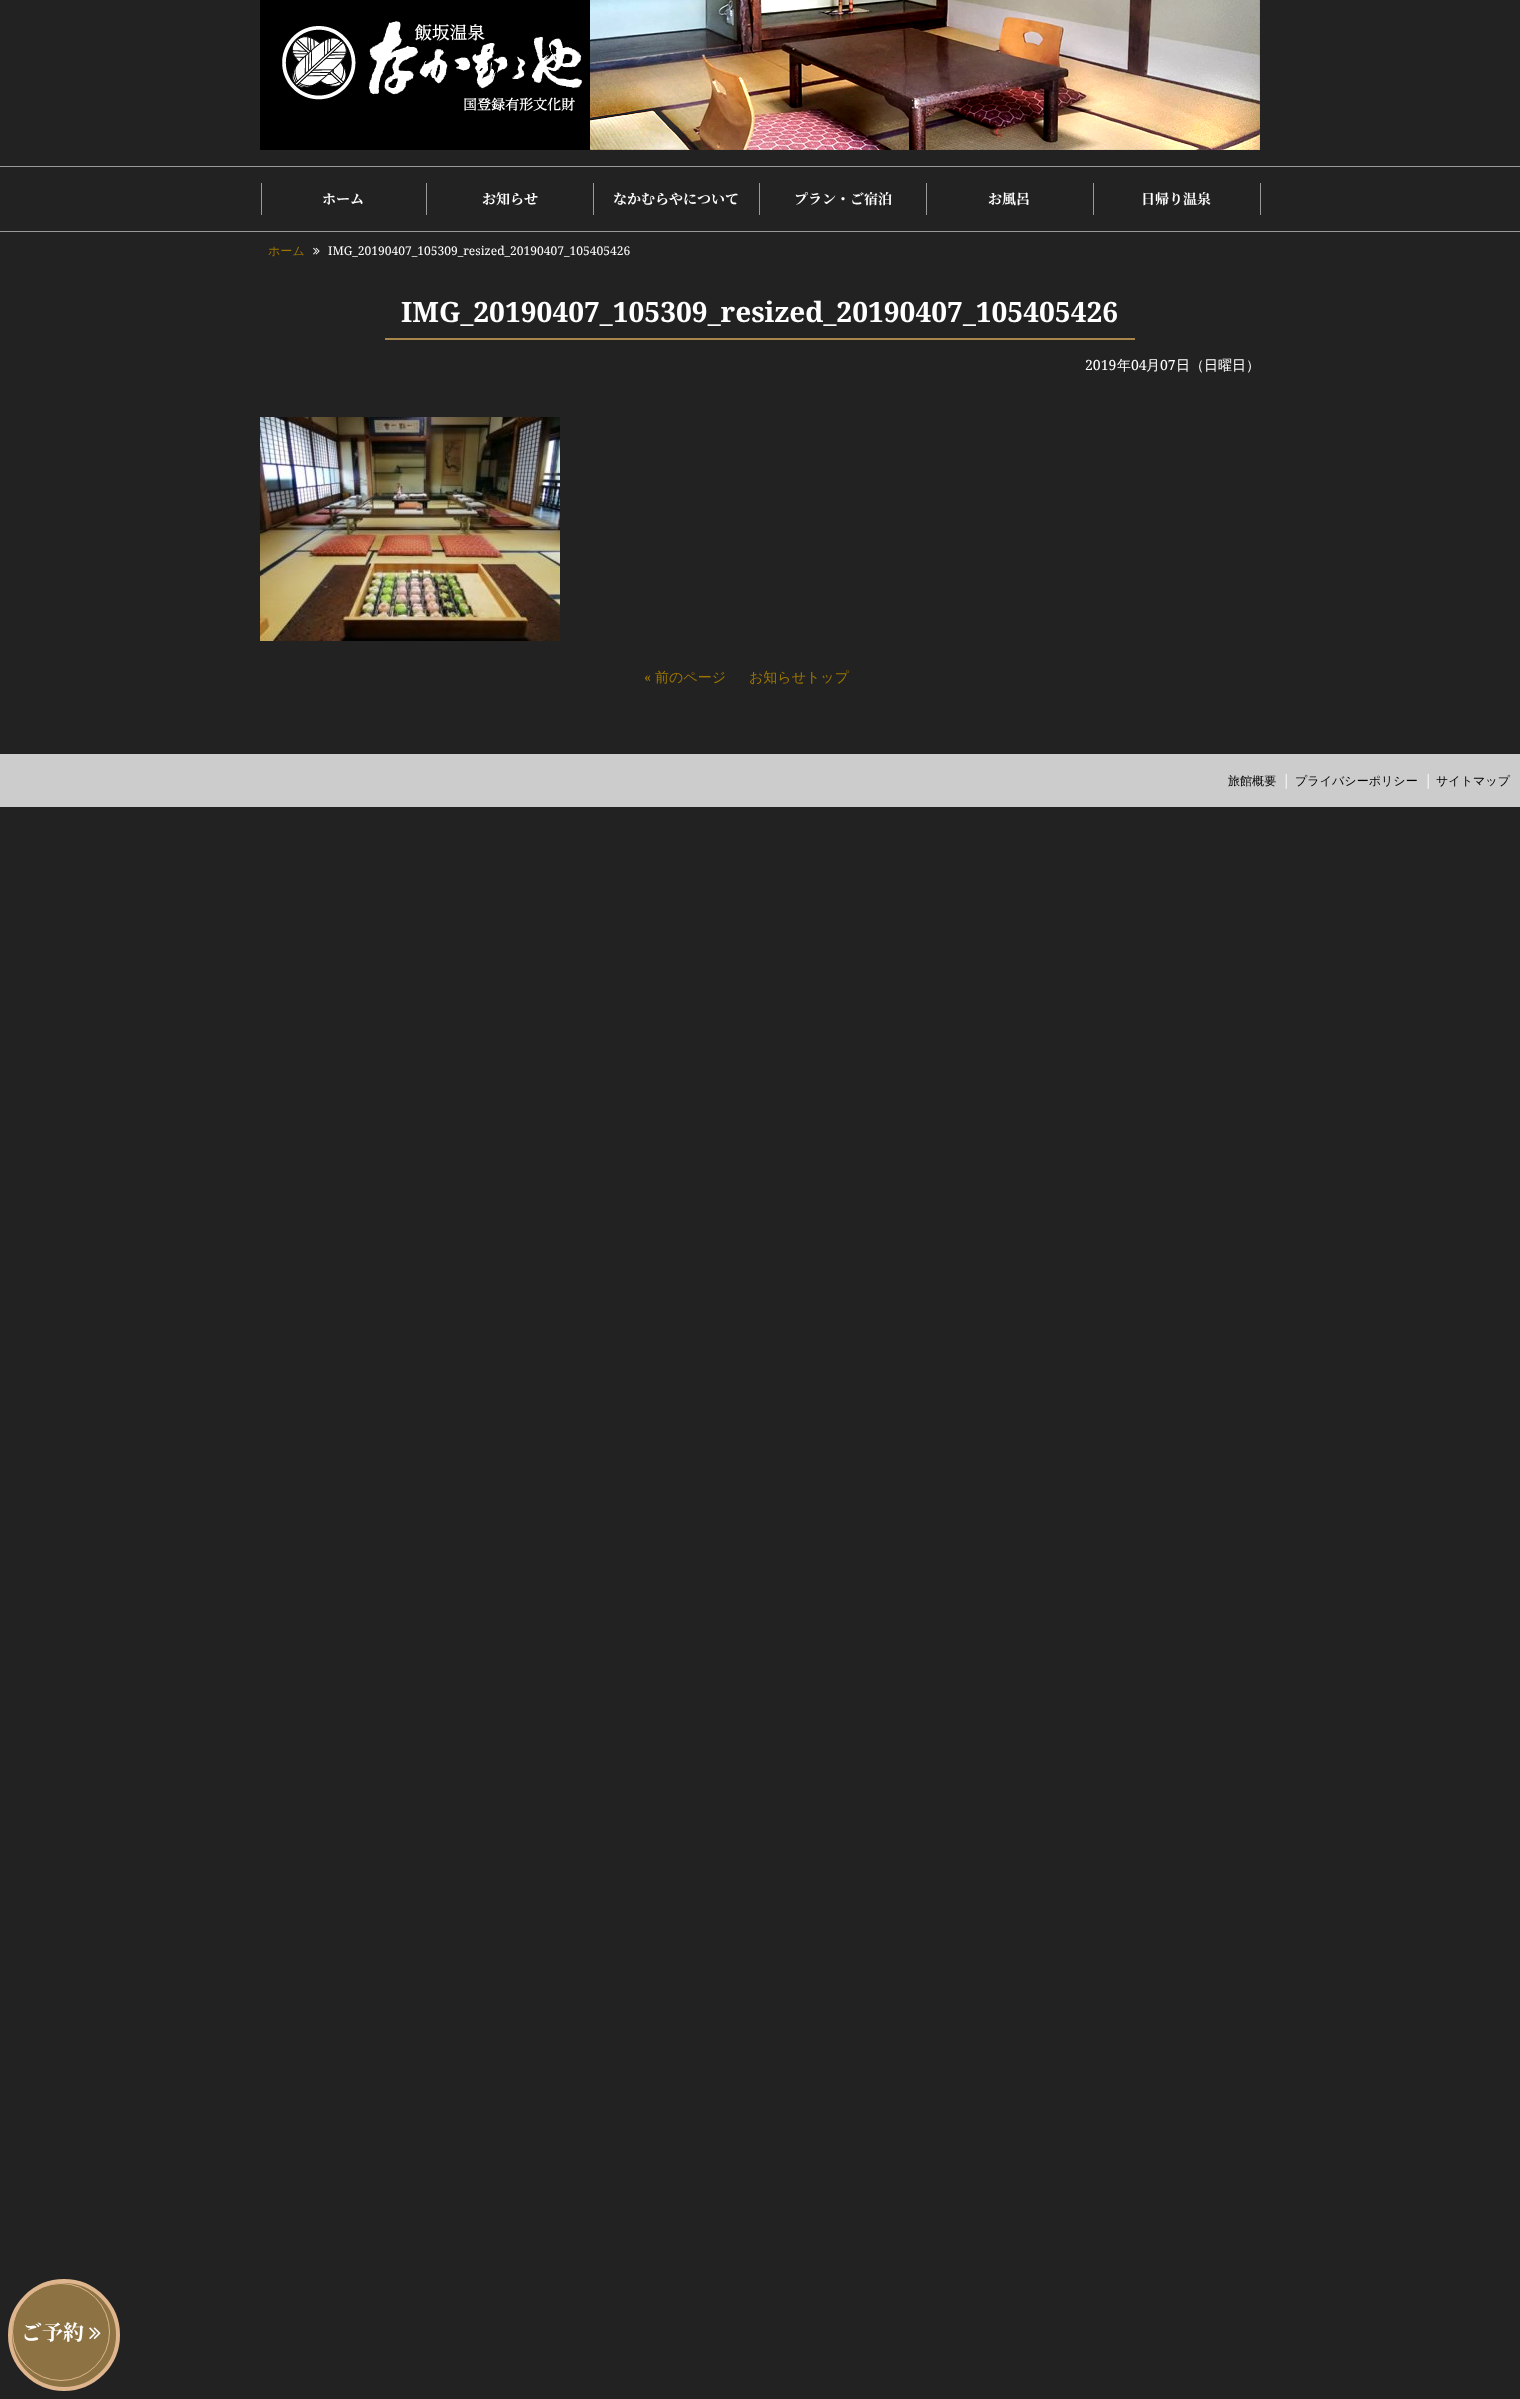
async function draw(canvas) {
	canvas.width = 1520;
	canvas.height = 2399;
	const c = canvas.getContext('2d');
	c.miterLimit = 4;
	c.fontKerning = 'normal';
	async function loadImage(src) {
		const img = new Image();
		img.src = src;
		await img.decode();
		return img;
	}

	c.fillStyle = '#222';
	c.fillRect(0, 0, 1520, 2399);
	c.fillStyle = '#000';
	c.fillRect(260, 0, 330, 150);
	c.drawImage(await loadImage('img1.png'), 590, 0, 670, 150);
	c.drawImage(await loadImage('img2.png'), 282, 21, 300, 90);
	for (const [x, y, w, h, color] of [
		[0, 166, 1520, 1, '#999'],
		[0, 231, 1520, 1, '#999'],
		[426, 183, 1, 32, '#999'],
		[261, 183, 1, 32, '#999'],
	]) {
		c.fillStyle = color;
		c.fillRect(x, y, w, h);
	}
	c.font = 'bold 14px Noto Serif JP';
	c.fillStyle = '#fff';
	c.fillText('ホーム', 322, 204);
	c.fillStyle = '#999';
	c.fillRect(593, 183, 1, 32);
	c.fillStyle = '#fff';
	c.fillText('お知らせ', 482, 204);
	c.fillStyle = '#999';
	c.fillRect(759, 183, 1, 32);
	c.fillStyle = '#fff';
	c.fillText('なかむらやについて', 613, 204);
	c.fillStyle = '#999';
	c.fillRect(926, 183, 1, 32);
	c.fillStyle = '#fff';
	c.fillText('プラン・ご宿泊', 794, 204);
	c.fillStyle = '#999';
	c.fillRect(1093, 183, 1, 32);
	c.fillStyle = '#fff';
	c.fillText('お風呂', 988, 204);
	c.fillStyle = '#999';
	c.fillRect(1260, 183, 1, 32);
	c.fillStyle = '#fff';
	c.fillText('日帰り温泉', 1141, 204);
	c.font = '500 12.05px WenQuanYi Zen Hei';
	c.fillStyle = '#9c7500';
	c.fillText('ホーム', 268, 255);
	c.drawImage(await loadImage('img3.png'), 313, 247, 7, 8);
	c.font = '12.05px Noto Serif';
	c.fillStyle = '#fff';
	c.fillText('IMG_20190407_105309_resized_20190407_105405426', 328, 255);
	c.font = 'bold 28px Noto Serif';
	c.fillText('IMG_20190407_105309_resized_20190407_105405426', 401, 322);
	c.fillStyle = '#a8864b';
	c.fillRect(385, 338, 750, 2);
	c.font = '14px Noto Serif';
	c.fillStyle = '#fff';
	c.fillText('2019', 1085, 370);
	c.font = '500 14px WenQuanYi Zen Hei';
	c.fillText('年', 1117, 370);
	c.font = '14px Noto Serif';
	c.fillText('04', 1131, 370);
	c.font = '500 14px WenQuanYi Zen Hei';
	c.fillText('月', 1146, 370);
	c.font = '14px Noto Serif';
	c.fillText('07', 1160, 370);
	c.font = '500 14px WenQuanYi Zen Hei';
	c.fillText('日（日曜日）', 1176, 370);
	c.drawImage(await loadImage('img4.png'), 260, 417, 300, 224);
	c.font = '14px Noto Serif';
	c.fillStyle = '#9c7500';
	c.fillText('«', 644, 682);
	c.font = '500 14px WenQuanYi Zen Hei';
	c.fillText('前のページ', 655, 682);
	c.fillText('お知らせトップ', 749, 682);
	c.fillStyle = '#ccc';
	c.fillRect(0, 754, 1520, 53);
	c.font = '500 12.05px WenQuanYi Zen Hei';
	c.fillStyle = '#000';
	c.fillText('旅館概要', 1228, 785);
	c.font = '12.05px Liberation Sans';
	c.fillStyle = '#fff';
	c.fillText('│', 1283, 785);
	c.font = '500 12.05px WenQuanYi Zen Hei';
	c.fillStyle = '#000';
	c.fillText('プライバシーポリシー', 1295, 785);
	c.font = '12.05px Liberation Sans';
	c.fillStyle = '#fff';
	c.fillText('│', 1425, 785);
	c.font = '500 12.05px WenQuanYi Zen Hei';
	c.fillStyle = '#000';
	c.fillText('サイトマップ', 1436, 785);
	c.fillStyle = '#8d7243';
	c.beginPath();
	c.arc(64, 2335, 54, 0, 2 * Math.PI);
	c.fill();
	c.strokeStyle = '#deb58c';
	c.lineWidth = 4;
	c.stroke();
	c.beginPath();
	c.arc(61, 2332, 48.5, 0, 2 * Math.PI);
	c.lineWidth = 1;
	c.stroke();
	c.font = 'bold 21px Noto Serif JP';
	c.fillStyle = '#fff';
	c.fillText('ご予約', 21, 2340);
	c.drawImage(await loadImage('img5.png'), 89, 2327, 12, 12);
}

draw(document.querySelector('canvas'));
